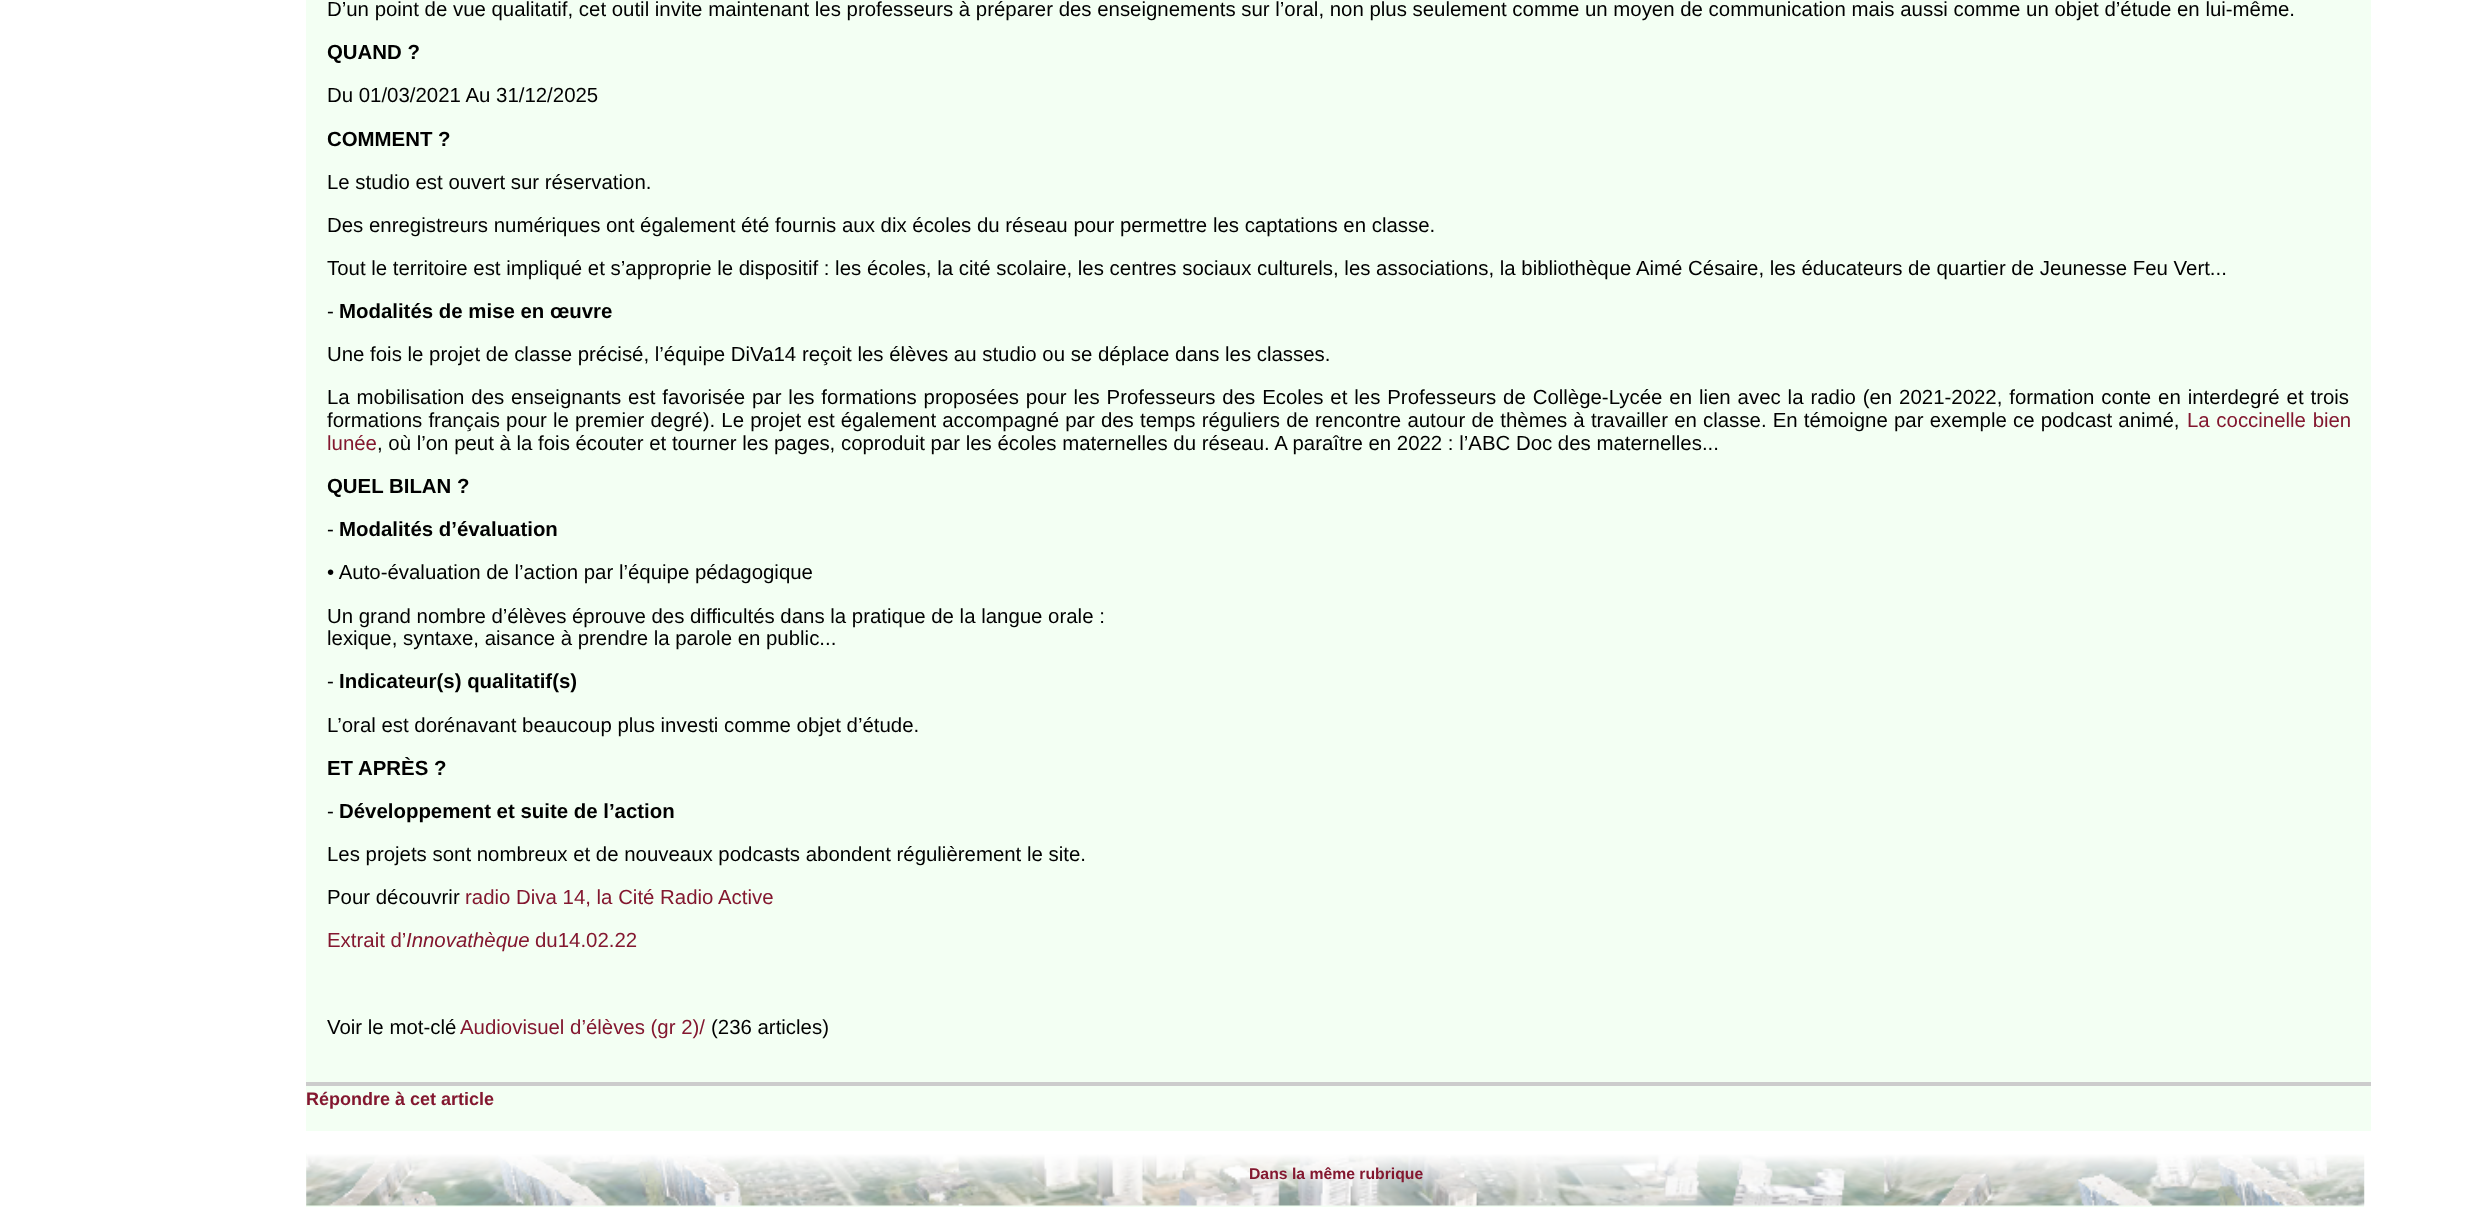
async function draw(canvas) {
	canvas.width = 2479;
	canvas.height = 1207;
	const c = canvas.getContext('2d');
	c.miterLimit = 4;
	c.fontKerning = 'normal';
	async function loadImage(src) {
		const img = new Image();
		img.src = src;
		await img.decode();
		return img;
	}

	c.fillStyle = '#fff';
	c.fillRect(0, 0, 2479, 1207);
	c.fillStyle = '#f3fff3';
	c.fillRect(306, 0, 2065, 1131);
	c.font = '20.42px Liberation Sans';
	c.fillStyle = '#000';
	c.fillText('D’un point de vue qualitatif, cet outil invite maintenant les professeurs à préparer des enseignements sur l’oral, non plus seulement comme un moyen de communication mais aussi comme un objet d’étude en lui-même.', 327, 16);
	c.font = 'bold 20.42px Liberation Sans';
	c.fillText('QUAND ?', 327, 59);
	c.font = '20.42px Liberation Sans';
	c.fillText('Du 01/03/2021 Au 31/12/2025', 327, 102);
	c.font = 'bold 20.42px Liberation Sans';
	c.fillText('COMMENT ?', 327, 146);
	c.font = '20.42px Liberation Sans';
	for (const [text, x, y] of [
		['Le studio est ouvert sur réservation.', 327, 189],
		['Des enregistreurs numériques ont également été fournis aux dix écoles du réseau pour permettre les captations en classe.', 327, 232],
		['Tout le territoire est impliqué et s’approprie le dispositif : les écoles, la cité scolaire, les centres sociaux culturels, les associations, la bibliothèque Aimé Césaire, les éducateurs de quartier de Jeunesse Feu Vert...', 327, 275],
		['-', 327, 318],
	]) {
		c.fillText(text, x, y);
	}
	c.font = 'bold 20.42px Liberation Sans';
	c.fillText('Modalités de mise en œuvre', 339, 318);
	c.font = '20.42px Liberation Sans';
	c.fillText('Une fois le projet de classe précisé, l’équipe DiVa14 reçoit les élèves au studio ou se déplace dans les classes.', 327, 361);
	c.wordSpacing = '1.25px';
	c.fillText('La mobilisation des enseignants est favorisée par les formations proposées pour les Professeurs des Ecoles et les Professeurs de Collège-Lycée en lien avec la radio (en 2021-2022, formation conte en interdegré et trois', 327, 404);
	c.wordSpacing = '0.5px';
	c.fillText('formations français pour le premier degré). Le projet est également accompagné par des temps réguliers de rencontre autour de thèmes à travailler en classe. En témoigne par exemple ce podcast animé,', 327, 427);
	c.wordSpacing = '1px';
	c.fillStyle = '#83172f';
	c.fillText('La coccinelle bien', 2187, 427);
	c.wordSpacing = '0px';
	c.fillText('lunée', 327, 450);
	c.fillStyle = '#000';
	c.fillText(', où l’on peut à la fois écouter et tourner les pages, coproduit par les écoles maternelles du réseau. A paraître en 2022 : l’ABC Doc des maternelles...', 377, 450);
	c.font = 'bold 20.42px Liberation Sans';
	c.fillText('QUEL BILAN ?', 327, 493);
	c.font = '20.42px Liberation Sans';
	c.fillText('-', 327, 536);
	c.font = 'bold 20.42px Liberation Sans';
	c.fillText('Modalités d’évaluation', 339, 536);
	c.font = '20.42px Liberation Sans';
	for (const [text, x, y] of [
		['• Auto-évaluation de l’action par l’équipe pédagogique', 327, 579],
		['Un grand nombre d’élèves éprouve des difficultés dans la pratique de la langue orale :', 327, 623],
		['lexique, syntaxe, aisance à prendre la parole en public...', 327, 645],
		['-', 327, 688],
	]) {
		c.fillText(text, x, y);
	}
	c.font = 'bold 20.42px Liberation Sans';
	c.fillText('Indicateur(s) qualitatif(s)', 339, 688);
	c.font = '20.42px Liberation Sans';
	c.fillText('L’oral est dorénavant beaucoup plus investi comme objet d’étude.', 327, 732);
	c.font = 'bold 20.42px Liberation Sans';
	c.fillText('ET APRÈS ?', 327, 775);
	c.font = '20.42px Liberation Sans';
	c.fillText('-', 327, 818);
	c.font = 'bold 20.42px Liberation Sans';
	c.fillText('Développement et suite de l’action', 339, 818);
	c.font = '20.42px Liberation Sans';
	c.fillText('Les projets sont nombreux et de nouveaux podcasts abondent régulièrement le site.', 327, 861);
	c.fillText('Pour découvrir', 327, 904);
	c.fillStyle = '#83172f';
	c.fillText('radio Diva 14, la Cité Radio Active', 465, 904);
	c.fillText('Extrait d’', 327, 947);
	c.font = 'italic 20.42px Liberation Sans';
	c.fillText('Innovathèque', 406, 947);
	c.font = '20.42px Liberation Sans';
	c.fillText('du14.02.22', 535, 947);
	c.fillStyle = '#000';
	c.fillText('Voir le mot-clé', 327, 1034);
	c.fillStyle = '#83172f';
	c.fillText('Audiovisuel d’élèves (gr 2)/', 460, 1034);
	c.fillStyle = '#000';
	c.fillText('(236 articles)', 711, 1034);
	c.fillStyle = '#ccc';
	c.fillRect(306, 1082, 2065, 4);
	c.font = 'bold 18px Liberation Sans';
	c.fillStyle = '#83172f';
	c.fillText('Répondre à cet article', 306, 1105);
	c.fillStyle = '#f3fff3';
	c.fillRect(306, 1153, 2058, 54);
	c.drawImage(await loadImage('img1.png'), 306, 1153, 2059, 53);
	c.font = 'bold 15.75px Liberation Sans';
	c.fillStyle = '#83172f';
	c.fillText('Dans la même rubrique', 1249, 1179);
}

draw(document.querySelector('canvas'));
